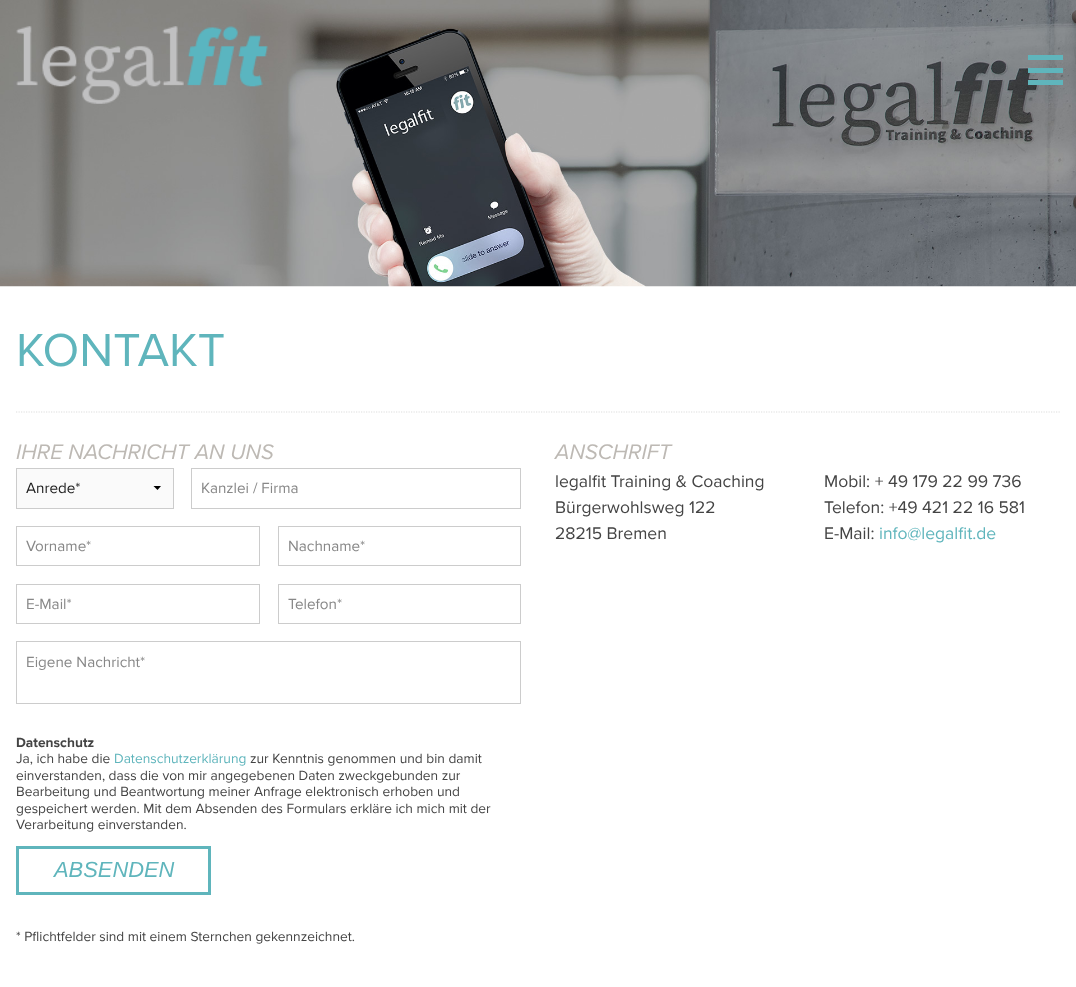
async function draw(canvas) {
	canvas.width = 1076;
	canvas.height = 987;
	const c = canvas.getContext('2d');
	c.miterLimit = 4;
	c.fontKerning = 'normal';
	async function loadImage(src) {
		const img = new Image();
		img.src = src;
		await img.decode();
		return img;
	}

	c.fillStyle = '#fff';
	c.fillRect(0, 0, 1076, 987);
	c.drawImage(await loadImage('img1.png'), 0, 0, 1076, 287);
	c.drawImage(await loadImage('img2.png'), 16, 26, 252, 78);
	for (const [x, y, w, h, color] of [
		[1028, 55, 35, 5, '#5fb5bc'],
		[1028, 68, 35, 5, '#5fb5bc'],
		[1028, 80, 35, 5, '#5fb5bc'],
	]) {
		c.fillStyle = color;
		c.fillRect(x, y, w, h);
	}
	c.font = '48px Proxima Nova';
	c.fillText('KONTAKT', 16, 366);
	c.beginPath();
	c.moveTo(16, 412);
	c.lineTo(1060, 412);
	c.strokeStyle = '#ddd';
	c.lineWidth = 1.2;
	c.setLineDash([1.25, 1.25]);
	c.stroke();
	c.font = 'italic 21.9px Proxima Nova';
	c.fillStyle = '#bdb9b4';
	c.fillText('IHRE NACHRICHT AN UNS', 16, 459);
	c.fillStyle = '#fafafa';
	c.fillRect(17, 469, 156, 39);
	c.fillStyle = '#000';
	c.beginPath();
	c.moveTo(161, 486);
	c.lineTo(157.5, 490);
	c.lineTo(153.5, 486);
	c.closePath();
	c.fill();
	c.strokeStyle = '#ccc';
	c.lineWidth = 1;
	c.setLineDash([]);
	c.strokeRect(16.5, 468.5, 157, 40);
	c.font = '15.25px Proxima Nova';
	c.fillStyle = '#1d1d1d';
	c.fillText('Anrede*', 26, 493);
	c.strokeRect(191.5, 468.5, 329, 40);
	c.fillStyle = '#888';
	c.fillText('Kanzlei / Firma', 201, 493);
	c.strokeRect(16.5, 526.5, 243, 39);
	c.fillText('Vorname*', 26, 551);
	c.strokeRect(278.5, 526.5, 242, 39);
	c.fillText('Nachname*', 288, 551);
	c.strokeRect(16.5, 584.5, 243, 39);
	c.fillText('E-Mail*', 26, 609);
	c.strokeRect(278.5, 584.5, 242, 39);
	c.fillText('Telefon*', 288, 609);
	c.strokeRect(16.5, 641.5, 504, 62);
	c.fillText('Eigene Nachricht*', 26, 667);
	c.font = 'bold 13.75px Proxima Nova';
	c.fillStyle = '#444';
	c.fillText('Datenschutz', 16, 747);
	c.font = '13.75px Proxima Nova';
	c.fillText('Ja, ich habe die', 16, 763);
	c.fillStyle = '#5fb5bc';
	c.fillText('Datenschutzerklärung', 114, 763);
	c.fillStyle = '#444';
	for (const [text, x, y] of [
		['zur Kenntnis genommen und bin damit', 250, 763],
		['einverstanden, dass die von mir angegebenen Daten zweckgebunden zur', 16, 780],
		['Bearbeitung und Beantwortung meiner Anfrage elektronisch erhoben und', 16, 796],
		['gespeichert werden. Mit dem Absenden des Formulars erkläre ich mich mit der', 16, 813],
		['Verarbeitung einverstanden.', 16, 829],
	]) {
		c.fillText(text, x, y);
	}
	c.strokeStyle = '#5fb5bc';
	c.lineWidth = 3;
	c.strokeRect(17.5, 847.5, 192, 46);
	c.font = 'italic 21.9px Liberation Sans';
	c.fillStyle = '#5fb5bc';
	c.fillText('ABSENDEN', 54, 877);
	c.font = '13.75px Proxima Nova';
	c.fillStyle = '#444';
	c.fillText('* Pflichtfelder sind mit einem Sternchen gekennzeichnet.', 16, 941);
	c.font = 'italic 21.9px Proxima Nova';
	c.fillStyle = '#bdb9b4';
	c.fillText('ANSCHRIFT', 555, 459);
	c.font = '17.5px Proxima Nova';
	c.fillStyle = '#444';
	for (const [text, x, y] of [
		['legalfit Training & Coaching', 555, 487],
		['Bürgerwohlsweg 122', 555, 513],
		['28215 Bremen', 555, 539],
		['Mobil: + 49 179 22 99 736', 824, 487],
		['Telefon: +49 421 22 16 581', 824, 513],
		['E-Mail:', 824, 539],
	]) {
		c.fillText(text, x, y);
	}
	c.fillStyle = '#5fb5bc';
	c.fillText('info@legalfit.de', 879, 539);
}

draw(document.querySelector('canvas'));
